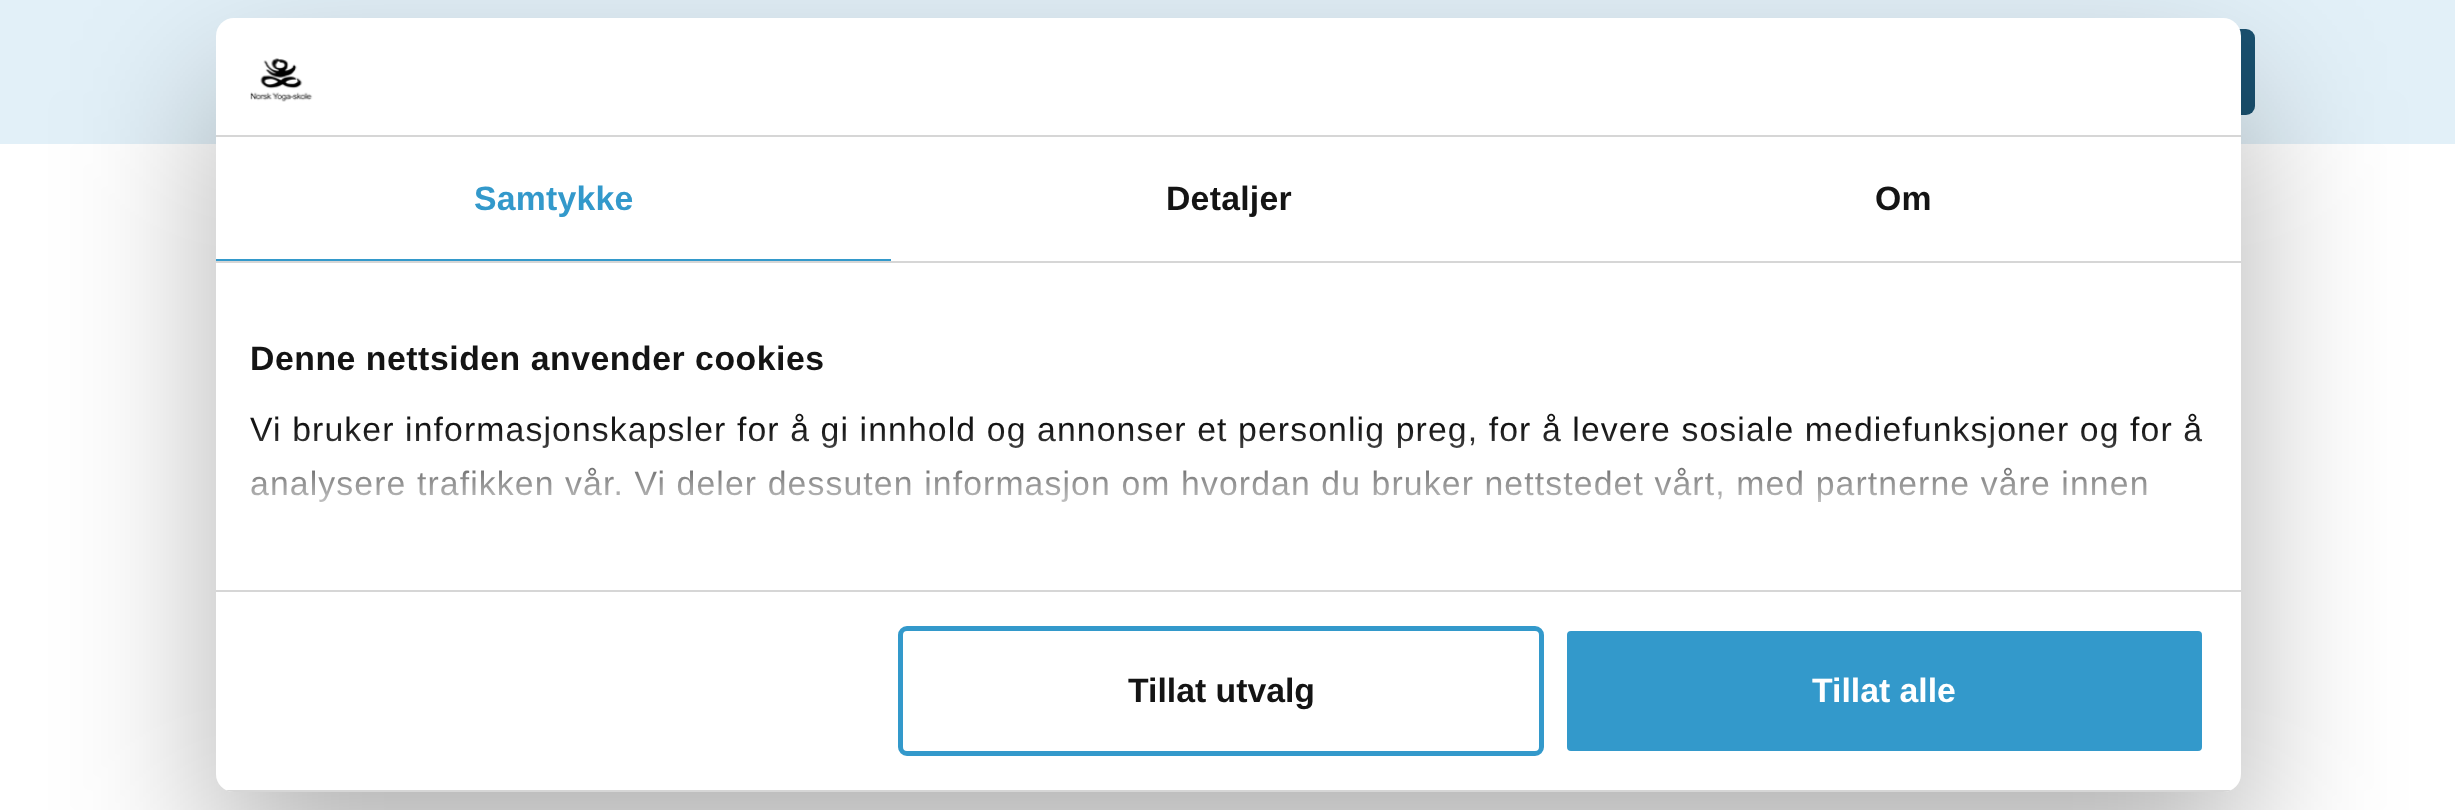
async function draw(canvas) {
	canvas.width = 2455;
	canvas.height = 810;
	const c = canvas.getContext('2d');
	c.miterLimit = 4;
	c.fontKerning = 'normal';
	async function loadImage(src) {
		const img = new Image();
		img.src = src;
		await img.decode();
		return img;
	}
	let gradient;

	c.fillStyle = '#fff';
	c.fillRect(0, 0, 2455, 810);
	c.fillStyle = '#e2f0f8';
	c.fillRect(0, 0, 2455, 144);
	c.fillStyle = '#1a5170';
	c.beginPath();
	c.roundRect(2014, 29, 241, 86, 9);
	c.fill();
	c.fillStyle = '#0000004d';
	c.filter = 'blur(76.5px)';
	c.beginPath();
	c.roundRect(216, 90, 2025, 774, 18);
	c.fill();
	c.filter = 'none';
	c.fillStyle = '#fff';
	c.beginPath();
	c.roundRect(216, 18, 2025, 774, 18);
	c.fill();
	c.fillStyle = '#d6d6d6';
	c.fillRect(216, 135, 2025, 2);
	c.drawImage(await loadImage('img1.png'), 250, 58, 63, 44);
	c.fillRect(216, 261, 2025, 2);
	c.fillStyle = '#3399cb';
	c.fillRect(216, 259, 675, 2);
	c.letterSpacing = '0.25px';
	c.font = 'bold 33.75px Liberation Sans';
	c.fillText('Samtykke', 474, 210);
	c.fillStyle = '#141414';
	c.fillText('Detaljer', 1166, 210);
	c.fillText('Om', 1875, 210);
	c.fillStyle = '#d6d6d6';
	c.fillRect(216, 590, 2025, 2);
	c.letterSpacing = '0.55px';
	c.fillStyle = '#141414';
	c.fillText('Denne nettsiden anvender cookies', 250, 370);
	c.letterSpacing = '1.12px';
	c.font = '33.75px Liberation Sans';
	c.fillText('Vi bruker informasjonskapsler for å gi innhold og annonser et personlig preg, for å levere sosiale mediefunksjoner og for å', 250, 441);
	c.fillText('analysere trafikken vår. Vi deler dessuten informasjon om hvordan du bruker nettstedet vårt, med partnerne våre innen', 250, 495);
	gradient = c.createLinearGradient(1214, 590, 1214, 428);
	gradient.addColorStop(0, '#fff');
	gradient.addColorStop(0.5, '#ffffffcc');
	gradient.addColorStop(1, '#ffffff00');
	c.fillStyle = gradient;
	c.fillRect(251, 430, 1952, 72);
	c.save();
	c.beginPath();
	c.roundRect(216, 18, 2025, 774, 18);
	c.clip();
	c.fillStyle = '#d6d6d6';
	c.fillRect(226, 790, 2005, 2);
	c.restore();
	c.beginPath();
	c.roundRect(900.5, 628.5, 641, 125, 6.5);
	c.strokeStyle = '#3399cb';
	c.lineWidth = 5;
	c.stroke();
	c.letterSpacing = '0px';
	c.font = 'bold 33.75px Liberation Sans';
	c.fillStyle = '#141414';
	c.fillText('Tillat utvalg', 1128, 702);
	c.fillStyle = '#3399cb';
	c.beginPath();
	c.roundRect(1564.5, 628.5, 640, 125, 6.5);
	c.fill();
	c.strokeStyle = '#fff';
	c.stroke();
	c.fillStyle = '#fff';
	c.fillText('Tillat alle', 1812, 702);
}

draw(document.querySelector('canvas'));
